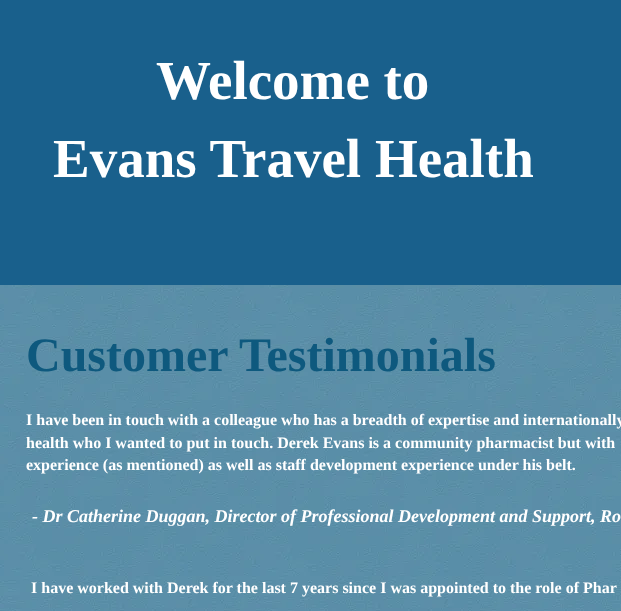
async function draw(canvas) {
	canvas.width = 621;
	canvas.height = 611;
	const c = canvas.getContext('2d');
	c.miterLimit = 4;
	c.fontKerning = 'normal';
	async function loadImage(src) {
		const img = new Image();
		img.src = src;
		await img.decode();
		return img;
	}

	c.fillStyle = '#fff';
	c.fillRect(0, 0, 621, 611);
	c.fillStyle = '#19608c';
	c.fillRect(0, 0, 621, 285);
	c.font = 'bold 55px Liberation Serif';
	c.fillStyle = '#fff';
	c.fillText('Welcome to', 156, 99);
	c.fillText('Evans Travel Health', 53, 177);
	c.drawImage(await loadImage('img1.png'), 0, 285, 621, 326);
	c.font = 'bold 48px Liberation Serif';
	c.fillStyle = '#0e597e';
	c.fillText('Customer Testimonials', 26, 371);
	c.font = 'bold 16px Liberation Serif';
	c.fillStyle = '#fff';
	for (const [text, x, y] of [
		['I have been in touch with a colleague who has a breadth of expertise and internationally', 26, 425],
		['health who I wanted to put in touch. Derek Evans is a community pharmacist but with', 26, 448],
		['experience (as mentioned) as well as staff development experience under his belt.', 26, 470],
	]) {
		c.fillText(text, x, y);
	}
	c.font = 'italic bold 18px Liberation Serif';
	c.fillText('- Dr Catherine Duggan, Director of Professional Development and Support, Ro', 32, 522);
	c.font = 'bold 16px Liberation Serif';
	c.fillText('I have worked with Derek for the last 7 years since I was appointed to the role of Phar', 31, 593);
}

draw(document.querySelector('canvas'));
